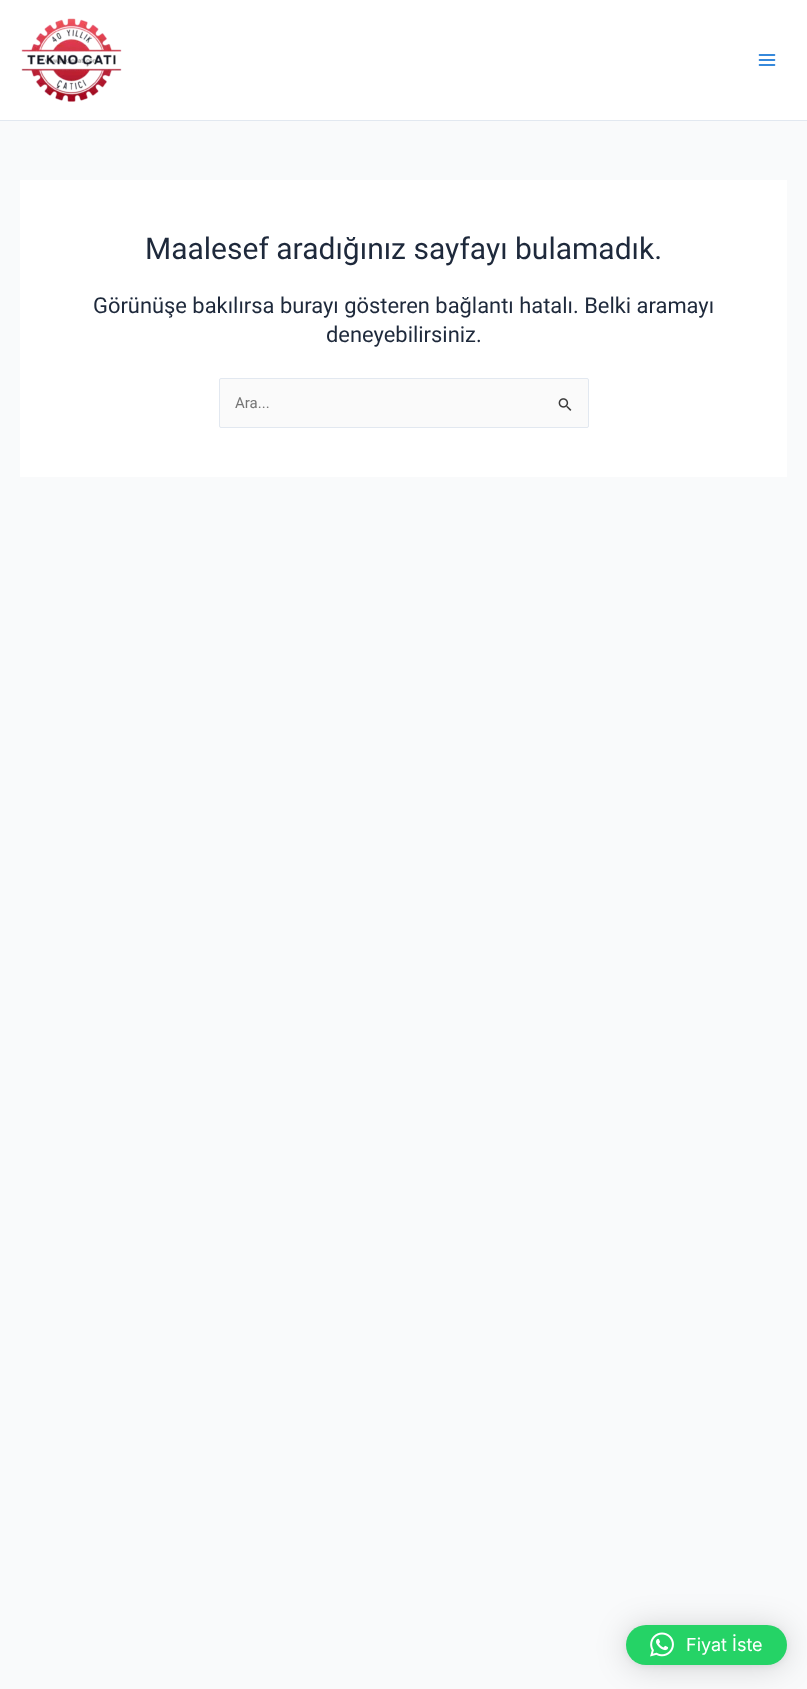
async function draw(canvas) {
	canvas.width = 807;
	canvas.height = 1689;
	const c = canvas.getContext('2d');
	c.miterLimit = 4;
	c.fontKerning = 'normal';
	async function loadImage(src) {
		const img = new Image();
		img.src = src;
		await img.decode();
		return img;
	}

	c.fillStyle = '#f9fafb';
	c.fillRect(0, 0, 807, 1689);
	c.fillStyle = '#fff';
	c.fillRect(0, 0, 807, 120);
	c.fillStyle = '#e2e8f0';
	c.fillRect(0, 120, 807, 1);
	c.drawImage(await loadImage('img1.png'), 21, 18, 101, 84);
	c.drawImage(await loadImage('img2.png'), 758, 54, 18, 12);
	c.fillStyle = '#fff';
	c.fillRect(20, 180, 767, 297);
	c.font = '30px Roboto';
	c.fillStyle = '#1e293b';
	c.fillText('Maalesef aradığınız sayfayı bulamadık.', 145, 259);
	c.font = '21.9px Roboto';
	c.fillText('Görünüşe bakılırsa burayı gösteren bağlantı hatalı. Belki aramayı', 93, 313);
	c.fillText('deneyebilirsiniz.', 326, 342);
	c.fillStyle = '#fafafa';
	c.beginPath();
	c.roundRect(219.5, 378.5, 369, 49, 1.5);
	c.fill();
	c.strokeStyle = '#e2e8f0';
	c.stroke();
	c.font = '15px Roboto';
	c.fillStyle = '#757575';
	c.fillText('Ara...', 235, 408);
	c.drawImage(await loadImage('img3.png'), 558, 398, 14, 13);
	c.fillStyle = '#00000029';
	c.filter = 'blur(16px)';
	c.beginPath();
	c.roundRect(626, 1627, 161, 40, 20);
	c.fill();
	c.filter = 'none';
	c.fillStyle = '#0000000f';
	c.filter = 'blur(3px)';
	c.beginPath();
	c.roundRect(626, 1626, 161, 40, 20);
	c.fill();
	c.filter = 'none';
	c.fillStyle = '#25d366';
	c.beginPath();
	c.roundRect(626, 1625, 161, 40, 20);
	c.fill();
	c.drawImage(await loadImage('img4.png'), 650, 1632, 24, 25);
	c.font = '18px Inter';
	c.fillStyle = '#fff';
	c.fillText('Fiyat İste', 686, 1651);
}

draw(document.querySelector('canvas'));
